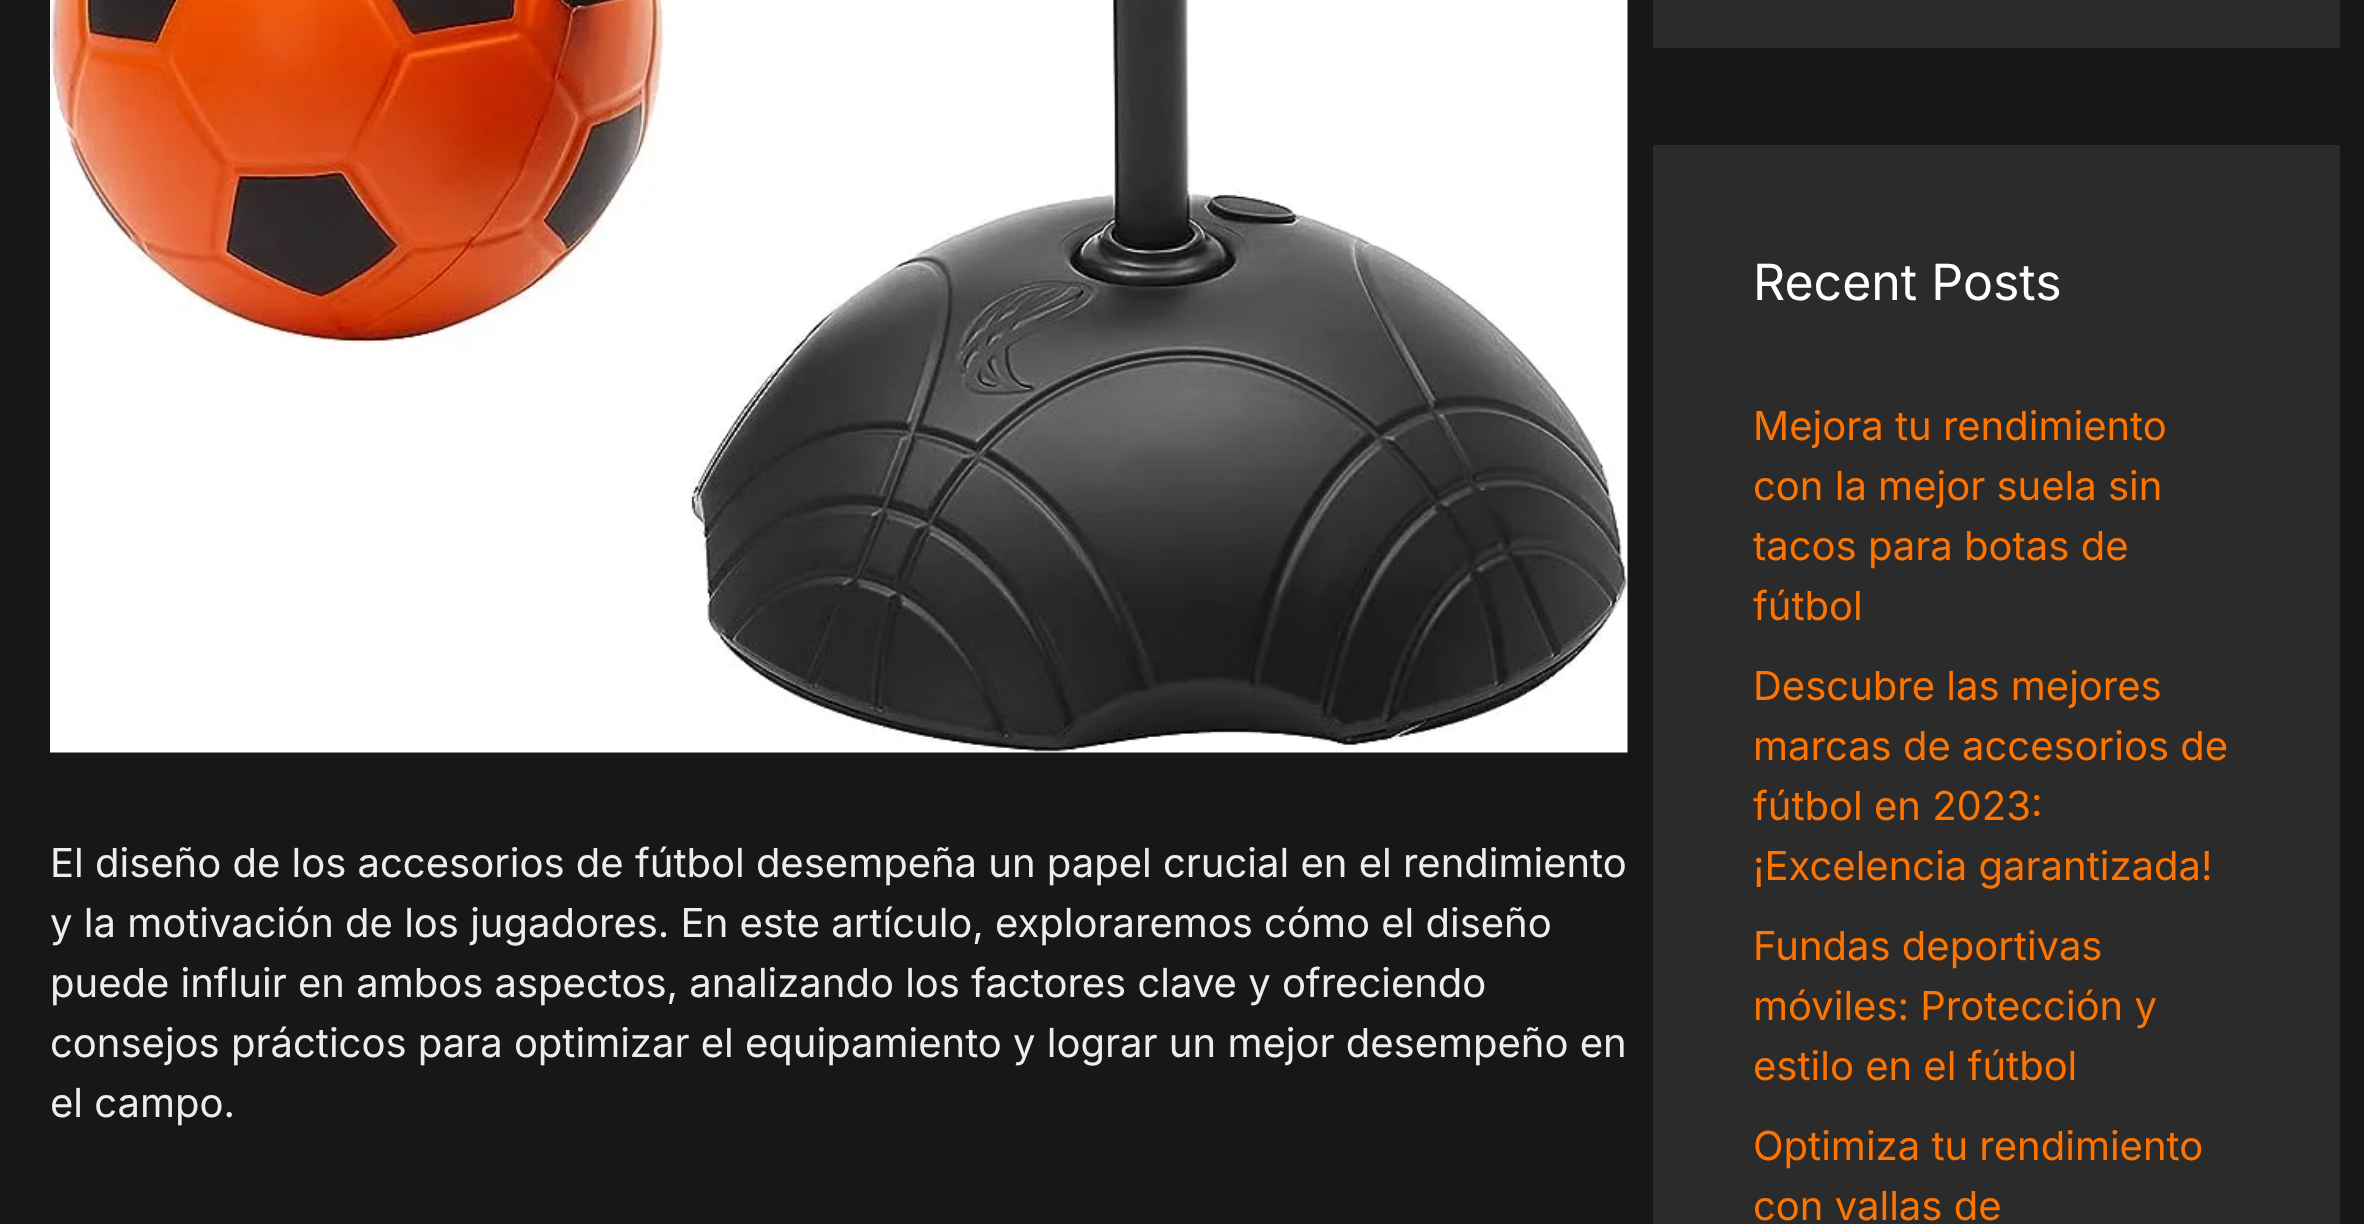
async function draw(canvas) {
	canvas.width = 2364;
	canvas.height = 1224;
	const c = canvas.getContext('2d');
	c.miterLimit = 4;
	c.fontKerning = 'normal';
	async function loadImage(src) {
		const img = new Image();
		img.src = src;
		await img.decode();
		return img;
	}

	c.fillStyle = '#171717';
	c.fillRect(0, 0, 2364, 1224);
	c.drawImage(await loadImage('img1.png'), 50, 0, 1578, 753);
	c.font = '40px Inter';
	c.fillStyle = '#ededed';
	for (const [text, x, y] of [
		['El diseño de los accesorios de fútbol desempeña un papel crucial en el rendimiento', 50, 877],
		['y la motivación de los jugadores. En este artículo, exploraremos cómo el diseño', 50, 937],
		['puede influir en ambos aspectos, analizando los factores clave y ofreciendo', 50, 997],
		['consejos prácticos para optimizar el equipamiento y lograr un mejor desempeño en', 50, 1057],
		['el campo.', 50, 1117],
	]) {
		c.fillText(text, x, y);
	}
	c.fillStyle = '#2b2b2b';
	c.fillRect(1653, 0, 687, 48);
	c.fillRect(1653, 145, 687, 1079);
	c.font = '50px Inter';
	c.fillStyle = '#fff';
	c.fillText('Recent Posts', 1753, 300);
	c.font = '40px Inter';
	c.fillStyle = '#fd7401';
	for (const [text, x, y] of [
		['Mejora tu rendimiento', 1753, 440],
		['con la mejor suela sin', 1753, 500],
		['tacos para botas de', 1753, 560],
		['fútbol', 1753, 620],
		['Descubre las mejores', 1753, 700],
		['marcas de accesorios de', 1753, 760],
		['fútbol en 2023:', 1753, 820],
		['¡Excelencia garantizada!', 1753, 880],
		['Fundas deportivas', 1753, 960],
		['móviles: Protección y', 1753, 1020],
		['estilo en el fútbol', 1753, 1080],
		['Optimiza tu rendimiento', 1753, 1160],
		['con vallas de', 1753, 1220],
	]) {
		c.fillText(text, x, y);
	}
}

draw(document.querySelector('canvas'));
